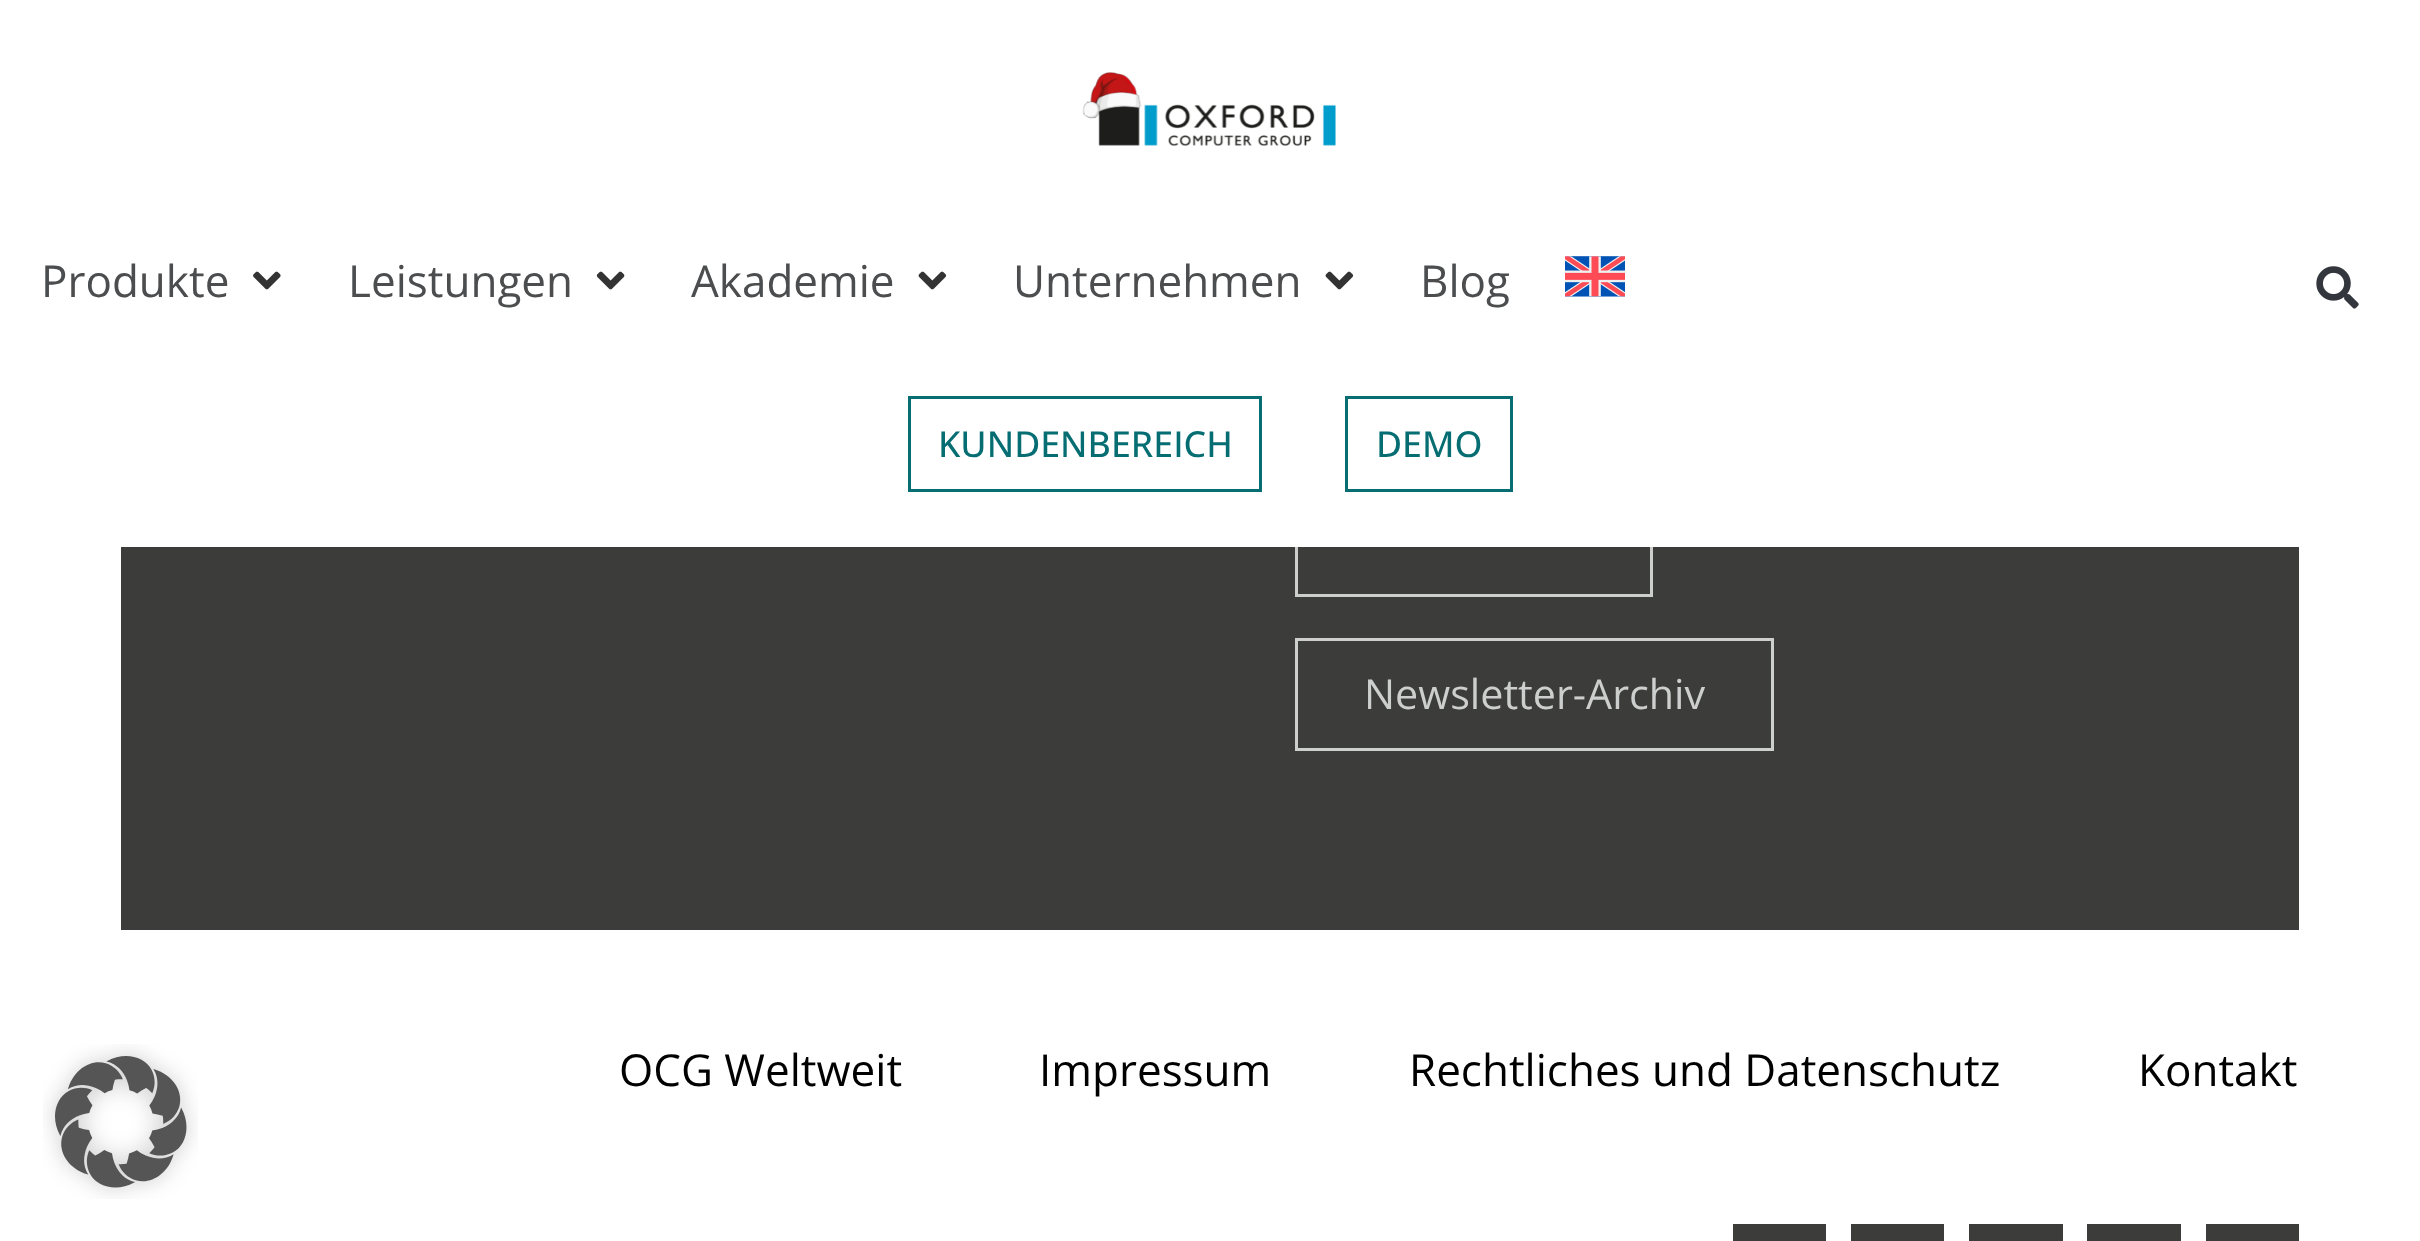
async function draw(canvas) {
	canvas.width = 2420;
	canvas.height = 1241;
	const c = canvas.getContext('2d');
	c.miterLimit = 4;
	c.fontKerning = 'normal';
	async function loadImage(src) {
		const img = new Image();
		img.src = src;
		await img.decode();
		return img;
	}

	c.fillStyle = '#fff';
	c.fillRect(0, 0, 2420, 1241);
	c.fillStyle = '#3c3c3b';
	c.fillRect(121, 547, 2178, 383);
	c.strokeStyle = '#cdcece';
	c.lineWidth = 3;
	c.strokeRect(1296.5, 485.5, 355, 110);
	c.fillStyle = '#fff';
	c.fillRect(1295, 484, 358, 63);
	c.drawImage(await loadImage('img1.png'), 1082, 72, 254, 74);
	c.font = '44px Open Sans';
	c.fillStyle = '#4c4d4e';
	c.fillText('Produkte', 41, 297);
	c.drawImage(await loadImage('img2.png'), 253, 271, 28, 19);
	c.fillText('Leistungen', 348, 297);
	c.drawImage(await loadImage('img3.png'), 596, 271, 29, 19);
	c.fillText('Akademie', 691, 297);
	c.drawImage(await loadImage('img4.png'), 918, 271, 29, 19);
	c.fillText('Unternehmen', 1013, 297);
	c.drawImage(await loadImage('img4.png'), 1325, 271, 29, 19);
	c.fillText('Blog', 1420, 297);
	c.drawImage(await loadImage('img5.png'), 1565, 256, 60, 41);
	c.drawImage(await loadImage('img6.png'), 2316, 266, 43, 43);
	c.strokeStyle = '#066e73';
	c.strokeRect(909.5, 397.5, 351, 93);
	c.font = '500 35.75px Open Sans';
	c.fillStyle = '#066e73';
	c.fillText('KUNDENBEREICH', 938, 457);
	c.strokeRect(1346.5, 397.5, 165, 93);
	c.fillText('DEMO', 1376, 457);
	c.strokeStyle = '#cdcece';
	c.strokeRect(1296.5, 639.5, 476, 110);
	c.font = '41.25px Open Sans';
	c.fillStyle = '#cdcece';
	c.fillText('Newsletter-Archiv', 1364, 709);
	c.font = '44px Open Sans';
	c.fillStyle = '#000';
	for (const [text, x, y] of [
		['OCG Weltweit', 619, 1086],
		['Impressum', 1039, 1086],
		['Rechtliches und Datenschutz', 1409, 1086],
		['Kontakt', 2138, 1086],
	]) {
		c.fillText(text, x, y);
	}
	for (const [x, y, w, h, color] of [
		[1733, 1224, 93, 17, '#3c3c3b'],
		[1851, 1224, 93, 17, '#3c3c3b'],
		[1969, 1224, 94, 17, '#3c3c3b'],
		[2087, 1224, 94, 17, '#3c3c3b'],
		[2206, 1224, 93, 17, '#3c3c3b'],
	]) {
		c.fillStyle = color;
		c.fillRect(x, y, w, h);
	}
	c.drawImage(await loadImage('img7.png'), 43, 1044, 155, 155);
}

draw(document.querySelector('canvas'));
